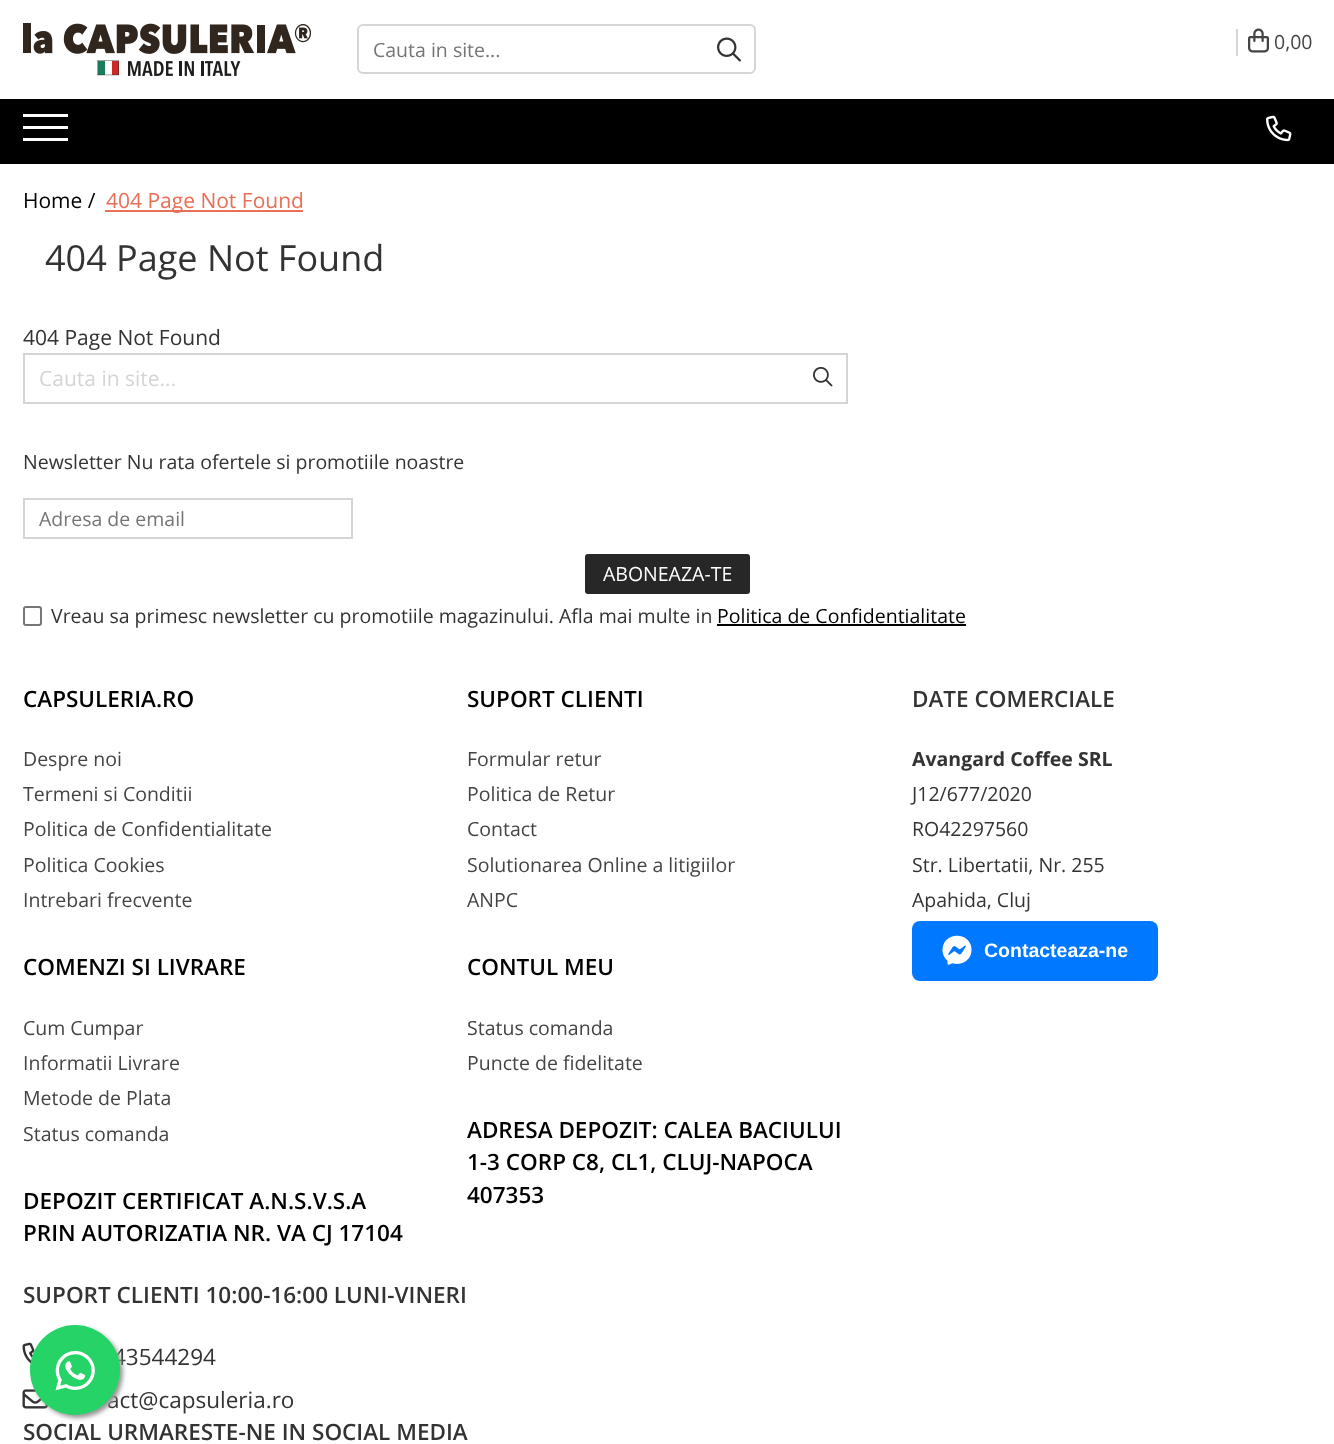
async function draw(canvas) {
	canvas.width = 1334;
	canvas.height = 1444;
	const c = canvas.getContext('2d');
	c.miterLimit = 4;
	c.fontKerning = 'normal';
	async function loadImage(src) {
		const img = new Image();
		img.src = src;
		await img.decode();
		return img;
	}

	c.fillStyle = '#fff';
	c.fillRect(0, 0, 1334, 1444);
	c.drawImage(await loadImage('img1.png'), 23, 23, 288, 53);
	c.beginPath();
	c.roundRect(358, 25, 397, 48, 5);
	c.strokeStyle = '#d5d5d5';
	c.lineWidth = 2;
	c.stroke();
	c.font = '19.5px Open Sans';
	c.fillStyle = '#757575';
	c.fillText('Cauta in site...', 373, 57);
	c.drawImage(await loadImage('img2.png'), 717, 37, 24, 25);
	c.fillStyle = '#d5d5d5';
	c.fillRect(1236, 29, 2, 27);
	c.drawImage(await loadImage('img3.png'), 1248, 28, 21, 25);
	c.fillStyle = '#444';
	c.fillText('0,00', 1274, 49);
	for (const [x, y, w, h, color] of [
		[0, 99, 1334, 65, '#000'],
		[23, 126, 45, 3, '#fff'],
		[23, 114, 45, 3, '#fff'],
		[23, 138, 45, 3, '#fff'],
	]) {
		c.fillStyle = color;
		c.fillRect(x, y, w, h);
	}
	c.drawImage(await loadImage('img4.png'), 1266, 115, 26, 27);
	c.font = '21px Open Sans';
	c.fillStyle = '#000';
	c.fillText('Home /', 23, 208);
	c.fillStyle = '#e96f56';
	c.fillRect(105, 210, 198, 2);
	c.fillText('404 Page Not Found', 106, 208);
	c.font = '36px Open Sans';
	c.fillStyle = '#333';
	c.fillText('404 Page Not Found', 45, 271);
	c.font = '21px Open Sans';
	c.fillText('404 Page Not Found', 23, 345);
	c.strokeRect(24, 354, 823, 49);
	c.fillStyle = '#d5d5d5';
	c.fillText('Cauta in site...', 39, 386);
	c.drawImage(await loadImage('img5.png'), 813, 366, 20, 21);
	c.font = '19.5px Open Sans';
	c.fillStyle = '#333';
	c.fillText('Newsletter Nu rata ofertele si promotiile noastre', 23, 469);
	c.strokeRect(24, 499, 328, 39);
	c.fillStyle = '#757575';
	c.fillText('Adresa de email', 39, 526);
	c.fillStyle = '#272727';
	c.beginPath();
	c.roundRect(585, 554, 165, 40, 3);
	c.fill();
	c.fillStyle = '#fff';
	c.fillText('ABONEAZA-TE', 603, 581);
	c.beginPath();
	c.roundRect(24, 607, 17, 18, 2);
	c.strokeStyle = '#767676';
	c.stroke();
	c.fillStyle = '#333';
	c.fillText('Vreau sa primesc newsletter cu promotiile magazinului. Afla mai multe in', 51, 623);
	c.fillStyle = '#000';
	c.fillText('Politica de Confidentialitate', 717, 623);
	c.fillRect(717, 624, 249, 2);
	c.font = '600 22.5px Open Sans';
	c.fillText('CAPSULERIA.RO', 23, 707);
	c.font = '19.5px Open Sans';
	c.fillStyle = '#444';
	for (const [text, x, y] of [
		['Despre noi', 23, 766],
		['Termeni si Conditii', 23, 801],
		['Politica de Confidentialitate', 23, 836],
		['Politica Cookies', 23, 872],
		['Intrebari frecvente', 23, 907],
	]) {
		c.fillText(text, x, y);
	}
	c.font = '600 22.5px Open Sans';
	c.fillStyle = '#000';
	c.fillText('COMENZI SI LIVRARE', 23, 975);
	c.font = '19.5px Open Sans';
	c.fillStyle = '#444';
	for (const [text, x, y] of [
		['Cum Cumpar', 23, 1035],
		['Informatii Livrare', 23, 1070],
		['Metode de Plata', 23, 1105],
		['Status comanda', 23, 1141],
	]) {
		c.fillText(text, x, y);
	}
	c.font = '600 22.5px Open Sans';
	c.fillStyle = '#000';
	for (const [text, x, y] of [
		['DEPOZIT CERTIFICAT A.N.S.V.S.A', 23, 1209],
		['PRIN AUTORIZATIA NR. VA CJ 17104', 23, 1241],
		['SUPORT CLIENTI', 467, 707],
	]) {
		c.fillText(text, x, y);
	}
	c.font = '19.5px Open Sans';
	c.fillStyle = '#444';
	for (const [text, x, y] of [
		['Formular retur', 467, 766],
		['Politica de Retur', 467, 801],
		['Contact', 467, 836],
		['Solutionarea Online a litigiilor', 467, 872],
		['ANPC', 467, 907],
	]) {
		c.fillText(text, x, y);
	}
	c.font = '600 22.5px Open Sans';
	c.fillStyle = '#000';
	c.fillText('CONTUL MEU', 467, 975);
	c.font = '19.5px Open Sans';
	c.fillStyle = '#444';
	c.fillText('Status comanda', 467, 1035);
	c.fillText('Puncte de fidelitate', 467, 1070);
	c.font = '600 22.5px Open Sans';
	c.fillStyle = '#000';
	for (const [text, x, y] of [
		['ADRESA DEPOZIT: CALEA BACIULUI', 467, 1138],
		['1-3 CORP C8, CL1, CLUJ-NAPOCA', 467, 1170],
		['407353', 467, 1203],
	]) {
		c.fillText(text, x, y);
	}
	c.fillStyle = '#333';
	c.fillText('DATE COMERCIALE', 912, 707);
	c.font = 'bold 19.5px Open Sans';
	c.fillText('Avangard Coffee SRL', 912, 766);
	c.font = '19.5px Open Sans';
	for (const [text, x, y] of [
		['J12/677/2020', 912, 801],
		['RO42297560', 912, 836],
		['Str. Libertatii, Nr. 255', 912, 872],
		['Apahida, Cluj', 912, 907],
	]) {
		c.fillText(text, x, y);
	}
	c.fillStyle = '#0078ff';
	c.beginPath();
	c.roundRect(912, 921, 246, 60, 8);
	c.fill();
	c.drawImage(await loadImage('img6.png'), 942, 935, 30, 30);
	c.font = 'bold 19.5px Liberation Sans';
	c.fillStyle = '#fff';
	c.fillText('Contacteaza-ne', 984, 957);
	c.font = '600 22.5px Open Sans';
	c.fillStyle = '#333';
	c.fillText('SUPORT CLIENTI 10:00-16:00 LUNI-VINERI', 23, 1303);
	c.drawImage(await loadImage('img7.png'), 22, 1342, 13, 22);
	c.font = '22.5px Open Sans';
	c.fillText('43544294', 113, 1365);
	c.drawImage(await loadImage('img8.png'), 22, 1389, 26, 20);
	c.fillText('act@capsuleria.ro', 107, 1408);
	c.font = '600 22.5px Open Sans';
	c.fillText('SOCIAL URMARESTE-NE IN SOCIAL MEDIA', 23, 1440);
	c.fillStyle = '#999';
	c.filter = 'blur(2px)';
	c.beginPath();
	c.roundRect(33, 1328, 90, 90, 45);
	c.fill();
	c.filter = 'none';
	c.fillStyle = '#25d366';
	c.beginPath();
	c.arc(75, 1370, 45, 0, 2 * Math.PI);
	c.fill();
	c.drawImage(await loadImage('img9.png'), 55, 1350, 40, 41);
}

draw(document.querySelector('canvas'));
